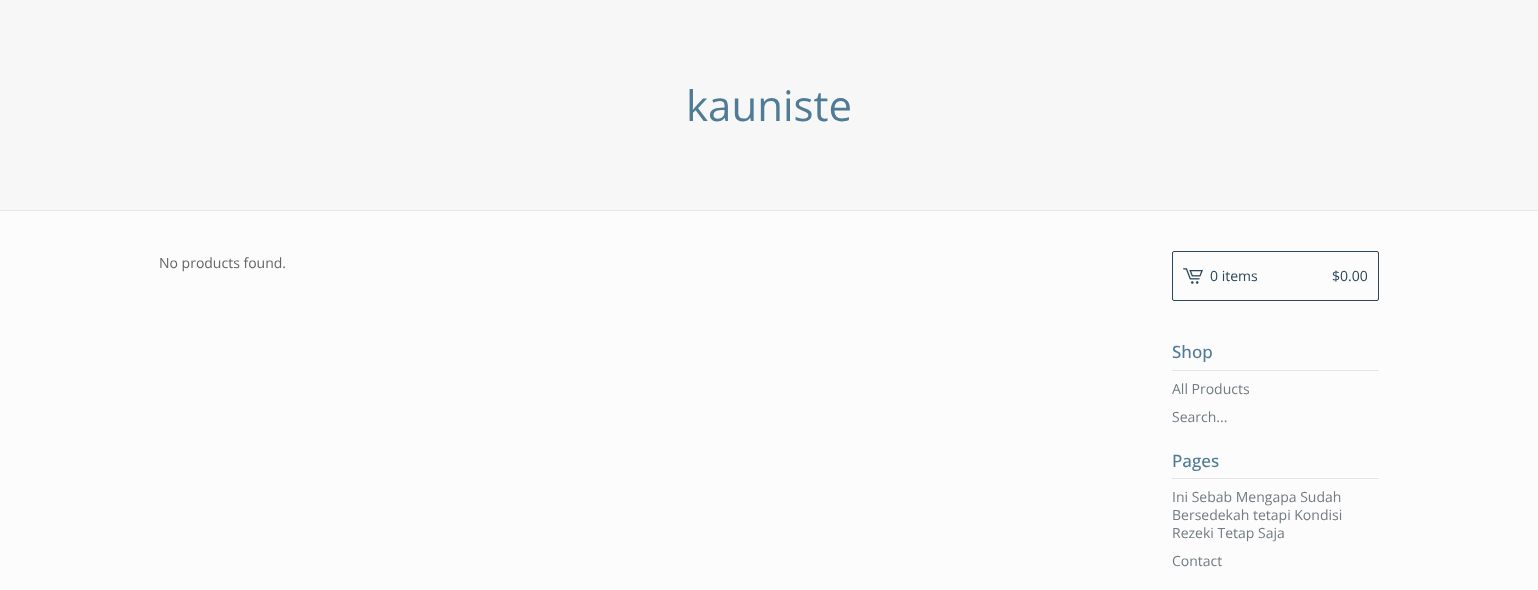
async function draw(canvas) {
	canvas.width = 1538;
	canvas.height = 590;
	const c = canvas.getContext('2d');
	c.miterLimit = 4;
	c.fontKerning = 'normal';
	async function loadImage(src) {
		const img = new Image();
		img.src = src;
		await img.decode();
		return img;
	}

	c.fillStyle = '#fcfcfc';
	c.fillRect(0, 0, 1538, 590);
	c.fillStyle = '#f7f7f7';
	c.fillRect(0, 0, 1538, 210);
	c.fillStyle = '#e5e5e5';
	c.fillRect(0, 210, 1538, 1);
	c.font = '42px Open Sans';
	c.fillStyle = '#507b96';
	c.fillText('kauniste', 686, 121);
	c.font = '14px Open Sans';
	c.fillStyle = '#646464';
	c.fillText('No products found.', 159, 268);
	c.beginPath();
	c.roundRect(1172.5, 251.5, 206, 49, 1.5);
	c.strokeStyle = '#2b4759';
	c.stroke();
	c.drawImage(await loadImage('img1.png'), 1183, 268, 20, 16);
	c.fillStyle = '#2b4759';
	c.fillText('0 items', 1210, 281);
	c.fillText('$0.00', 1332, 281);
	c.fillStyle = '#e5e5e5';
	c.fillRect(1172, 370, 207, 1);
	c.font = '500 17px Open Sans';
	c.fillStyle = '#507b96';
	c.fillText('Shop', 1172, 358);
	c.font = '14px Open Sans';
	c.fillStyle = '#717c82';
	c.fillText('All Products', 1172, 394);
	c.fillText('Search...', 1172, 422);
	c.fillStyle = '#e5e5e5';
	c.fillRect(1172, 478, 207, 1);
	c.font = '500 17px Open Sans';
	c.fillStyle = '#507b96';
	c.fillText('Pages', 1172, 467);
	c.font = '14px Open Sans';
	c.fillStyle = '#717c82';
	for (const [text, x, y] of [
		['Ini Sebab Mengapa Sudah', 1172, 502],
		['Bersedekah tetapi Kondisi', 1172, 520],
		['Rezeki Tetap Saja', 1172, 538],
		['Contact', 1172, 566],
	]) {
		c.fillText(text, x, y);
	}
}

draw(document.querySelector('canvas'));
